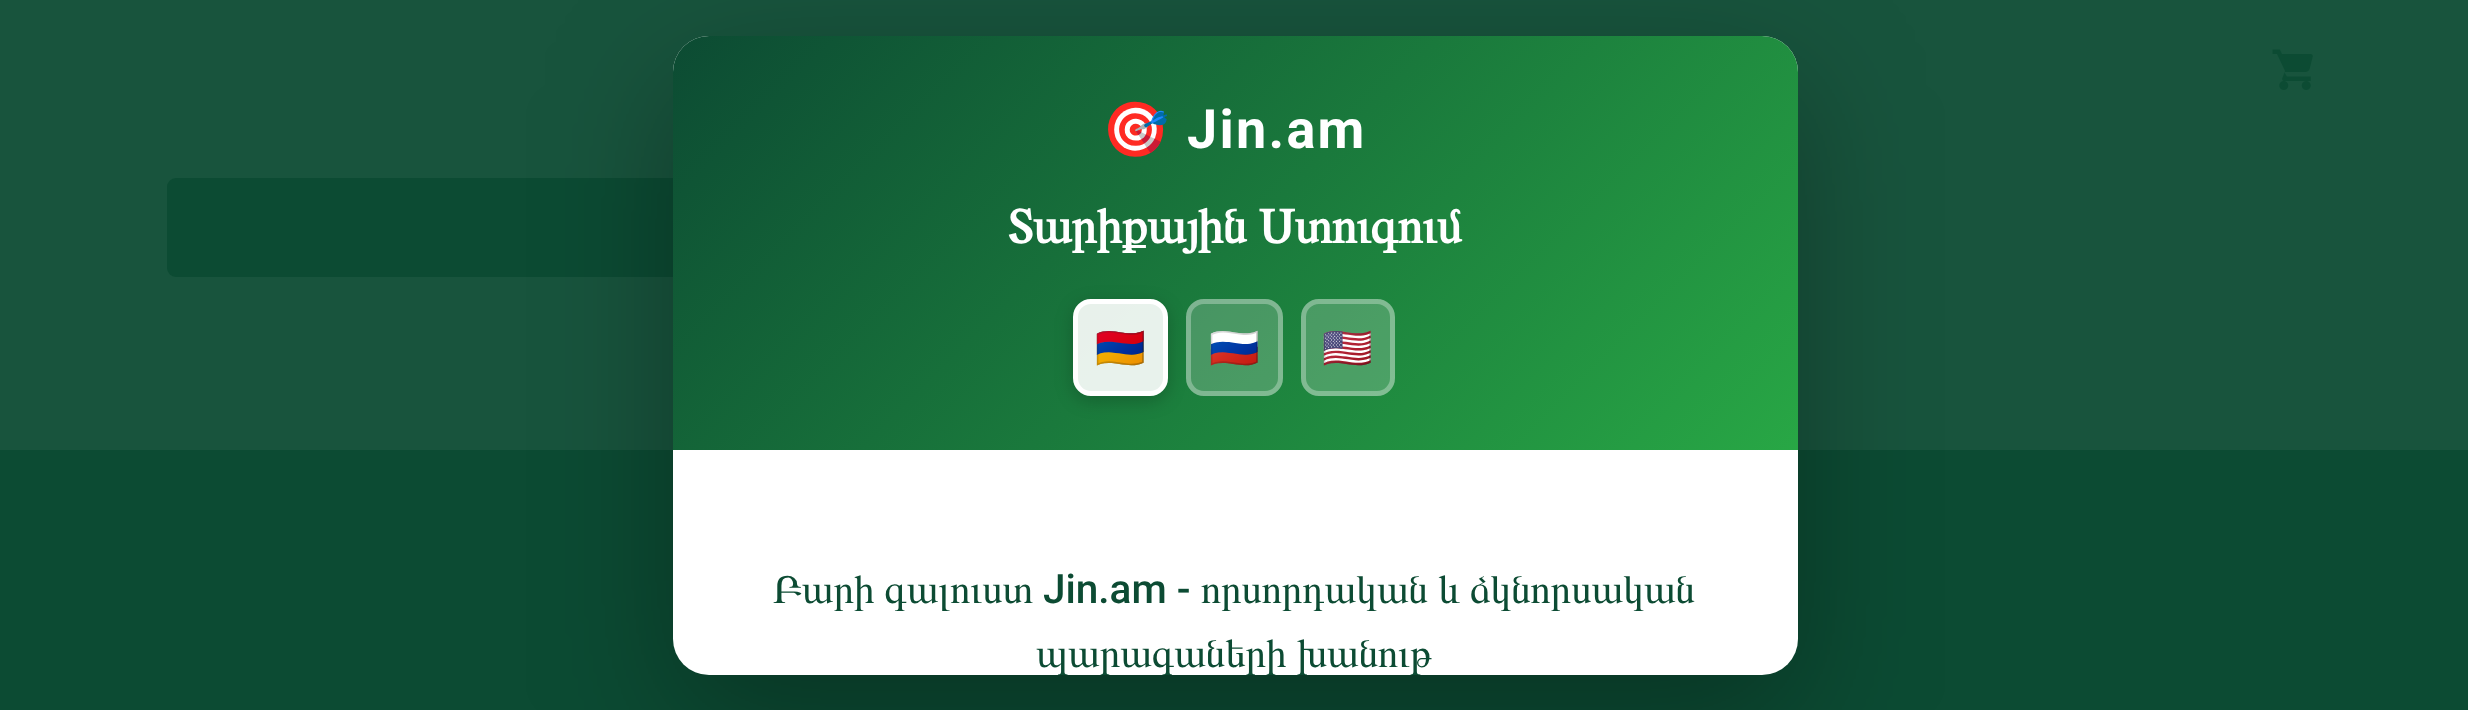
async function draw(canvas) {
	canvas.width = 2468;
	canvas.height = 710;
	const c = canvas.getContext('2d');
	c.miterLimit = 4;
	c.fontKerning = 'normal';
	async function loadImage(src) {
		const img = new Image();
		img.src = src;
		await img.decode();
		return img;
	}
	let gradient;

	c.fillStyle = '#18543d';
	c.fillRect(0, 0, 2468, 710);
	c.drawImage(await loadImage('img1.png'), 2272, 49, 41, 41);
	c.fillStyle = '#0c4b33';
	c.beginPath();
	c.roundRect(167, 178, 630, 99, 9);
	c.fill();
	c.fillRect(0, 450, 2468, 260);
	c.fillStyle = '#0000004d';
	c.filter = 'blur(67.5px)';
	c.beginPath();
	c.roundRect(673, 81, 1125, 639, 36);
	c.fill();
	c.filter = 'none';
	c.fillStyle = '#fff';
	c.beginPath();
	c.roundRect(673, 36, 1125, 639, 36);
	c.fill();
	gradient = c.createLinearGradient(851, -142, 1620, 628);
	gradient.addColorStop(0, '#0c4b33');
	gradient.addColorStop(1, '#28a745');
	c.fillStyle = gradient;
	c.beginPath();
	c.roundRect(673, 36, 1125, 414, [36, 36, 0, 0]);
	c.fill();
	c.letterSpacing = '2.25px';
	c.font = 'bold 54px Noto Color Emoji';
	c.fillStyle = '#fff';
	c.fillText('🎯', 1102, 148);
	c.font = 'bold 54px Roboto';
	c.fillText('Jin.am', 1187, 148);
	c.letterSpacing = '0px';
	c.font = 'bold 49.5px FreeSerif';
	c.fillText('Տարիքային Ստուգում', 1007, 243);
	c.save();
	c.beginPath();
	c.moveTo(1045, 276);
	c.lineTo(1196, 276);
	c.lineTo(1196, 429);
	c.lineTo(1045, 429);
	c.closePath();
	c.moveTo(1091, 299);
	c.lineTo(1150, 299);
	c.bezierCurveTo(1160, 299, 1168, 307, 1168, 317);
	c.lineTo(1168, 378);
	c.bezierCurveTo(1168, 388, 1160, 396, 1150, 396);
	c.lineTo(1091, 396);
	c.bezierCurveTo(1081, 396, 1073, 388, 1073, 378);
	c.lineTo(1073, 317);
	c.bezierCurveTo(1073, 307, 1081, 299, 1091, 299);
	c.closePath();
	c.clip('evenodd');
	c.fillStyle = '#00000033';
	c.filter = 'blur(9px)';
	c.beginPath();
	c.roundRect(1073, 304, 95, 97, 18);
	c.fill();
	c.filter = 'none';
	c.restore();
	c.fillStyle = '#ffffffe6';
	c.beginPath();
	c.roundRect(1075.5, 301.5, 90, 92, 15.5);
	c.fill();
	c.strokeStyle = '#fff';
	c.lineWidth = 5;
	c.stroke();
	c.font = '40.5px Noto Color Emoji';
	c.fillStyle = '#fff';
	c.fillText('🇦🇲', 1095, 362);
	c.fillStyle = '#ffffff33';
	c.beginPath();
	c.roundRect(1186, 299, 97, 97, 18);
	c.fill();
	c.beginPath();
	c.roundRect(1188.5, 301.5, 92, 92, 15.5);
	c.strokeStyle = '#ffffff4d';
	c.stroke();
	c.fillStyle = '#fff';
	c.fillText('🇷🇺', 1209, 362);
	c.fillStyle = '#ffffff33';
	c.beginPath();
	c.roundRect(1301, 299, 94, 97, 18);
	c.fill();
	c.beginPath();
	c.roundRect(1303.5, 301.5, 89, 92, 15.5);
	c.stroke();
	c.fillStyle = '#fff';
	c.fillText('🇺🇸', 1322, 362);
	c.font = '40.5px FreeSerif';
	c.fillStyle = '#0c4b33';
	c.fillText('Բարի գալուստ', 773, 603);
	c.font = '500 40.5px Roboto';
	c.fillText('Jin.am -', 1043, 603);
	c.font = '40.5px FreeSerif';
	c.fillText('որսորդական և ձկնորսական', 1201, 603);
	c.save();
	c.beginPath();
	c.roundRect(673, 36, 1125, 639, 36);
	c.clip();
	c.fillText('պարագաների խանութ', 1036, 667);
	c.restore();
}

draw(document.querySelector('canvas'));
